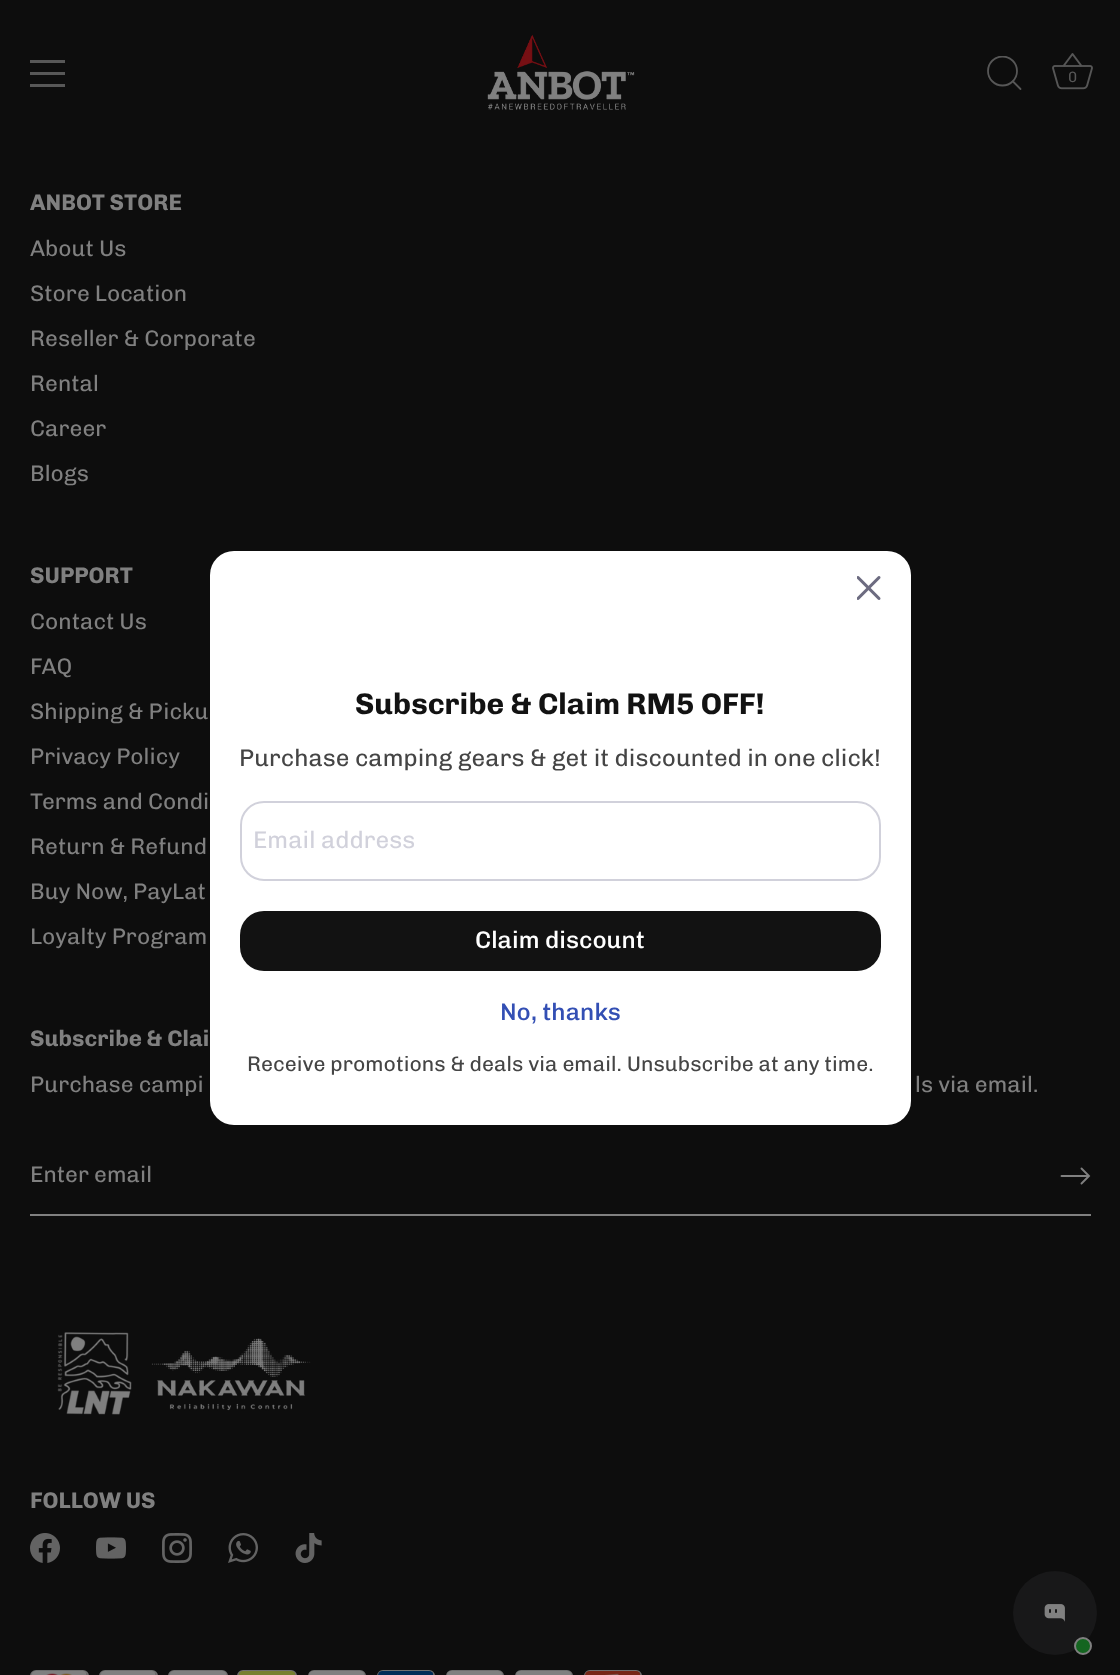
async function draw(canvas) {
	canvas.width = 1120;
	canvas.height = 1675;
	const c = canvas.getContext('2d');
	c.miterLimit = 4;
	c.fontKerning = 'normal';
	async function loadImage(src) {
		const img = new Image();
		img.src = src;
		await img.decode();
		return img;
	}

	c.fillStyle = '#0d0d0d';
	c.fillRect(0, 0, 1120, 1675);
	for (const [x, y, w, h, color] of [
		[30, 60, 35, 3, '#575757'],
		[30, 72, 35, 3, '#575757'],
		[30, 84, 35, 3, '#575757'],
	]) {
		c.fillStyle = color;
		c.fillRect(x, y, w, h);
	}
	c.drawImage(await loadImage('img1.png'), 487, 34, 148, 76);
	c.save();
	c.beginPath();
	c.rect(987, 56, 36, 36);
	c.clip();
	c.beginPath();
	c.arc(1002.5, 71, 14.5, 0, 2 * Math.PI);
	c.strokeStyle = '#575757';
	c.lineWidth = 1.8;
	c.stroke();
	c.restore();
	c.beginPath();
	c.moveTo(1020.5, 89);
	c.lineTo(1013, 81.5);
	c.strokeStyle = '#575757';
	c.lineWidth = 1.8;
	c.lineCap = 'round';
	c.lineJoin = 'round';
	c.stroke();
	c.drawImage(await loadImage('img2.png'), 1052, 53, 41, 37);
	c.font = '15px Chivo';
	c.fillText('0', 1068, 82);
	c.font = 'bold 22.5px Chivo';
	c.fillStyle = '#808080';
	c.fillText('ANBOT STORE', 30, 210);
	c.font = '22.5px Chivo';
	for (const [text, x, y] of [
		['About Us', 30, 256],
		['Store Location', 30, 301],
		['Reseller & Corporate', 30, 346],
		['Rental', 30, 391],
		['Career', 30, 436],
		['Blogs', 30, 481],
	]) {
		c.fillText(text, x, y);
	}
	c.font = 'bold 22.5px Chivo';
	c.fillText('SUPPORT', 30, 583);
	c.font = '22.5px Chivo';
	for (const [text, x, y] of [
		['Contact Us', 30, 629],
		['FAQ', 30, 674],
		['Shipping & Picku', 30, 719],
		['Privacy Policy', 30, 764],
		['Terms and Condi', 30, 809],
		['Return & Refund', 30, 854],
		['Buy Now, PayLat', 30, 899],
		['Loyalty Program', 30, 944],
	]) {
		c.fillText(text, x, y);
	}
	c.font = 'bold 22.5px Chivo';
	c.fillText('Subscribe & Clai', 30, 1046);
	c.font = '22.5px Chivo';
	c.fillText('Purchase campi', 30, 1092);
	c.fillText('ls via email.', 915, 1092);
	c.fillRect(30, 1214, 1061, 2);
	c.fillText('Enter email', 30, 1182);
	c.beginPath();
	c.moveTo(1081.5, 1183.5);
	c.lineTo(1089, 1176);
	c.lineTo(1081.5, 1168.5);
	c.strokeStyle = '#808080';
	c.lineWidth = 1.9;
	c.lineJoin = 'miter';
	c.stroke();
	c.beginPath();
	c.moveTo(1088, 1176);
	c.lineTo(1061.5, 1176);
	c.lineJoin = 'round';
	c.stroke();
	c.drawImage(await loadImage('img3.png'), 57, 1332, 254, 83);
	c.font = 'bold 22.5px Chivo';
	c.fillText('FOLLOW US', 30, 1508);
	c.drawImage(await loadImage('img4.png'), 30, 1533, 30, 30);
	c.drawImage(await loadImage('img5.png'), 96, 1537, 30, 22);
	c.drawImage(await loadImage('img6.png'), 162, 1533, 30, 30);
	c.drawImage(await loadImage('img7.png'), 228, 1533, 30, 30);
	c.drawImage(await loadImage('img8.png'), 295, 1533, 27, 30);
	c.beginPath();
	c.roundRect(31, 1671, 57, 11, 5);
	c.strokeStyle = '#6f6f6f';
	c.lineWidth = 2;
	c.lineJoin = 'miter';
	c.stroke();
	c.beginPath();
	c.roundRect(100, 1671, 57, 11, 5);
	c.stroke();
	c.beginPath();
	c.roundRect(169, 1671, 58, 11, 5);
	c.stroke();
	c.beginPath();
	c.roundRect(238, 1671, 58, 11, 5);
	c.stroke();
	c.beginPath();
	c.roundRect(309, 1671, 56, 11, 5);
	c.stroke();
	c.beginPath();
	c.roundRect(378, 1671, 56, 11, 5);
	c.stroke();
	c.beginPath();
	c.roundRect(447, 1671, 56, 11, 5);
	c.stroke();
	c.beginPath();
	c.roundRect(516, 1671, 56, 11, 5);
	c.stroke();
	c.beginPath();
	c.roundRect(585, 1671, 56, 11, 5);
	c.stroke();
	c.drawImage(await loadImage('img9.png'), 31, 1671, 56, 4);
	c.drawImage(await loadImage('img10.png'), 100, 1671, 56, 4);
	c.drawImage(await loadImage('img11.png'), 169, 1671, 58, 4);
	c.drawImage(await loadImage('img12.png'), 238, 1671, 58, 4);
	c.drawImage(await loadImage('img13.png'), 309, 1671, 56, 4);
	c.drawImage(await loadImage('img14.png'), 378, 1671, 56, 4);
	c.drawImage(await loadImage('img13.png'), 447, 1671, 56, 4);
	c.drawImage(await loadImage('img13.png'), 516, 1671, 56, 4);
	c.drawImage(await loadImage('img15.png'), 585, 1671, 56, 4);
	c.fillStyle = '#fff';
	c.beginPath();
	c.roundRect(210, 551, 701, 574, 24);
	c.fill();
	c.drawImage(await loadImage('img16.png'), 857, 576, 24, 24);
	c.font = 'bold 30px Chivo';
	c.fillStyle = '#121212';
	c.fillText('Subscribe & Claim RM5 OFF!', 355, 714);
	c.font = '24px Chivo';
	c.fillStyle = '#454545';
	c.fillText('Purchase camping gears & get it discounted in one click!', 239, 766);
	c.beginPath();
	c.roundRect(241, 802, 639, 78, 23);
	c.strokeStyle = '#d1d1db';
	c.stroke();
	c.fillStyle = '#d1d1db';
	c.fillText('Email address', 253, 848);
	c.fillStyle = '#121212';
	c.beginPath();
	c.roundRect(240, 911, 641, 60, 24);
	c.fill();
	c.font = '500 24px Chivo';
	c.fillStyle = '#fff';
	c.fillText('Claim discount', 475, 948);
	c.fillStyle = '#334fb4';
	c.fillText('No, thanks', 500, 1020);
	c.font = '21px Chivo';
	c.fillStyle = '#454545';
	c.fillText('Receive promotions & deals via email. Unsubscribe at any time.', 247, 1071);
	c.fillStyle = '#181819';
	c.beginPath();
	c.arc(1055, 1613, 42, 0, 2 * Math.PI);
	c.fill();
	c.drawImage(await loadImage('img17.png'), 1044, 1604, 21, 18);
	c.fillStyle = '#146520';
	c.beginPath();
	c.arc(1083, 1646, 8, 0, 2 * Math.PI);
	c.fill();
	c.strokeStyle = '#808080';
	c.stroke();
}

draw(document.querySelector('canvas'));
